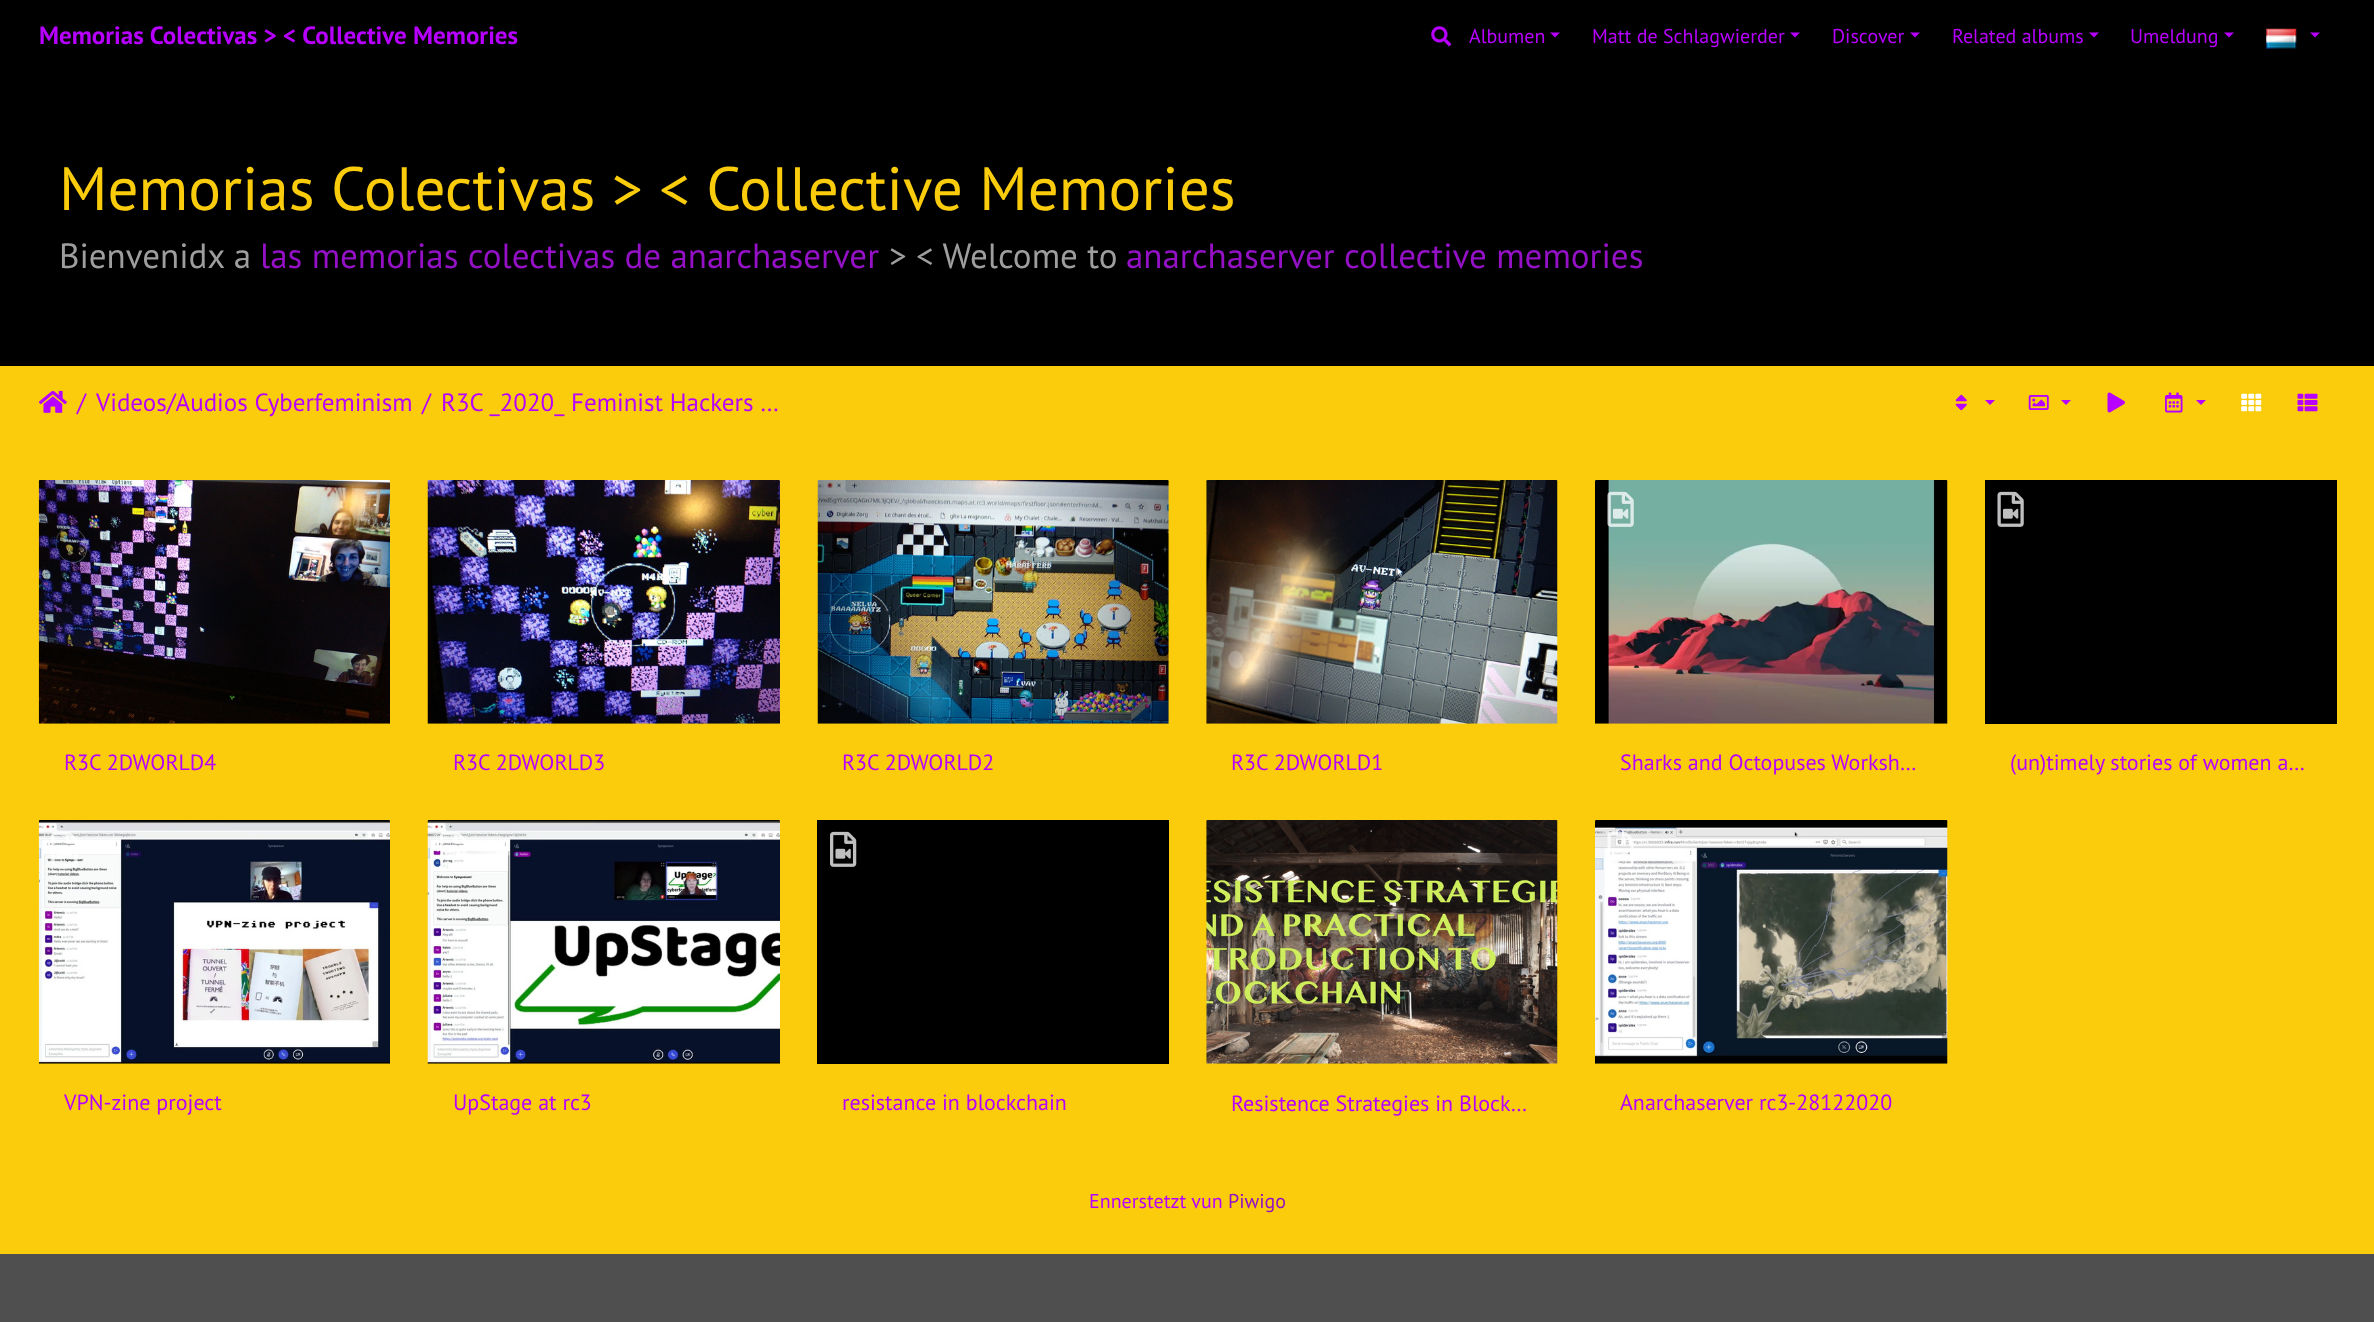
async function draw(canvas) {
	canvas.width = 2374;
	canvas.height = 1322;
	const c = canvas.getContext('2d');
	c.miterLimit = 4;
	c.fontKerning = 'normal';
	async function loadImage(src) {
		const img = new Image();
		img.src = src;
		await img.decode();
		return img;
	}

	c.fillStyle = '#4f4f4f';
	c.fillRect(0, 0, 2374, 1322);
	c.fillStyle = '#fbcc0c';
	c.fillRect(0, 366, 2374, 888);
	c.fillStyle = '#000';
	c.fillRect(0, 0, 2374, 366);
	c.font = 'bold 25px PT Sans';
	c.fillStyle = '#b700ff';
	c.fillText('Memorias Colectivas > < Collective Memories', 39, 44);
	c.drawImage(await loadImage('img1.png'), 1431, 26, 21, 21);
	c.font = '20px PT Sans';
	c.fillText('Albumen', 1469, 43);
	c.beginPath();
	c.moveTo(1550, 32.5);
	c.lineTo(1560, 32.5);
	c.lineTo(1555, 37.5);
	c.closePath();
	c.fill();
	c.fillText('Matt de Schlagwierder', 1592, 43);
	c.beginPath();
	c.moveTo(1790, 32.5);
	c.lineTo(1800, 32.5);
	c.lineTo(1795, 37.5);
	c.closePath();
	c.fill();
	c.fillText('Discover', 1832, 43);
	c.beginPath();
	c.moveTo(1910, 32.5);
	c.lineTo(1920, 32.5);
	c.lineTo(1915, 37.5);
	c.closePath();
	c.fill();
	c.fillText('Related albums', 1952, 43);
	c.beginPath();
	c.moveTo(2089, 32.5);
	c.lineTo(2099, 32.5);
	c.lineTo(2094, 37.5);
	c.closePath();
	c.fill();
	c.fillText('Umeldung', 2130, 43);
	c.beginPath();
	c.moveTo(2224, 32.5);
	c.lineTo(2234, 32.5);
	c.lineTo(2229, 37.5);
	c.closePath();
	c.fill();
	c.drawImage(await loadImage('img2.png'), 2266, 28, 31, 21);
	c.beginPath();
	c.moveTo(2310, 32.5);
	c.lineTo(2320, 32.5);
	c.lineTo(2315, 37.5);
	c.closePath();
	c.fill();
	c.font = '61.25px PT Sans';
	c.fillStyle = '#fbcc0c';
	c.fillText('Memorias Colectivas > < Collective Memories', 59, 210);
	c.font = '35px PT Sans';
	c.fillStyle = '#9e9e9e';
	c.fillText('Bienvenidx a', 59, 268);
	c.fillStyle = '#9411c6';
	c.fillText('las memorias colectivas de anarchaserver', 260, 268);
	c.fillStyle = '#9e9e9e';
	c.fillText('> < Welcome to', 889, 268);
	c.fillStyle = '#9411c6';
	c.fillText('anarchaserver collective memories', 1126, 268);
	c.drawImage(await loadImage('img3.png'), 39, 390, 28, 23);
	c.font = '25px PT Sans';
	c.fillStyle = '#b700ff';
	for (const [text, x, y] of [
		['/', 77, 411],
		['Videos/Audios Cyberfeminism', 96, 411],
		['/', 422, 411],
		['R3C _2020_ Feminist Hackers …', 441, 411],
	]) {
		c.fillText(text, x, y);
	}
	c.drawImage(await loadImage('img4.png'), 1955, 394, 12, 17);
	c.beginPath();
	c.moveTo(1985, 400);
	c.lineTo(1995, 400);
	c.lineTo(1990, 405);
	c.closePath();
	c.fill();
	c.drawImage(await loadImage('img5.png'), 2028, 395, 21, 15);
	c.beginPath();
	c.moveTo(2061, 400);
	c.lineTo(2071, 400);
	c.lineTo(2066, 405);
	c.closePath();
	c.fill();
	c.drawImage(await loadImage('img6.png'), 2107, 392, 18, 21);
	c.drawImage(await loadImage('img7.png'), 2165, 392, 18, 21);
	c.beginPath();
	c.moveTo(2196, 400);
	c.lineTo(2206, 400);
	c.lineTo(2201, 405);
	c.closePath();
	c.fill();
	c.drawImage(await loadImage('img8.png'), 2241, 393, 21, 19);
	c.drawImage(await loadImage('img9.png'), 2297, 393, 21, 19);
	c.drawImage(await loadImage('img10.png'), 38, 480, 352, 244);
	c.font = '22px PT Sans';
	c.fillText('R3C 2DWORLD4', 64, 770);
	c.drawImage(await loadImage('img11.png'), 427, 480, 353, 244);
	c.fillText('R3C 2DWORLD3', 453, 770);
	c.drawImage(await loadImage('img12.png'), 817, 480, 352, 244);
	c.fillText('R3C 2DWORLD2', 842, 770);
	c.drawImage(await loadImage('img13.png'), 1206, 480, 352, 244);
	c.fillText('R3C 2DWORLD1', 1231, 770);
	c.drawImage(await loadImage('img14.png'), 1595, 480, 353, 244);
	c.drawImage(await loadImage('img15.png'), 1607, 491, 27, 36);
	c.fillText('Sharks and Octopuses Worksh…', 1620, 770);
	c.fillStyle = '#000';
	c.fillRect(1985, 480, 352, 244);
	c.drawImage(await loadImage('img16.png'), 1997, 491, 27, 36);
	c.fillStyle = '#b700ff';
	c.fillText('(un)timely stories of women a…', 2010, 770);
	c.drawImage(await loadImage('img17.png'), 38, 820, 352, 244);
	c.drawImage(await loadImage('img18.png'), 51, 832, 27, 35);
	c.fillText('VPN-zine project', 64, 1110);
	c.drawImage(await loadImage('img19.png'), 427, 820, 353, 244);
	c.drawImage(await loadImage('img20.png'), 440, 832, 26, 35);
	c.fillText('UpStage at rc3', 453, 1110);
	c.fillStyle = '#000';
	c.fillRect(817, 820, 352, 244);
	c.drawImage(await loadImage('img21.png'), 830, 831, 27, 36);
	c.fillStyle = '#b700ff';
	c.fillText('resistance in blockchain', 842, 1110);
	c.drawImage(await loadImage('img22.png'), 1206, 820, 352, 244);
	c.fillText('Resistence Strategies in Block…', 1231, 1111);
	c.drawImage(await loadImage('img23.png'), 1595, 820, 353, 244);
	c.drawImage(await loadImage('img24.png'), 1607, 831, 27, 36);
	c.fillText('Anarchaserver rc3-28122020', 1620, 1110);
	c.font = '20px PT Sans';
	c.fillText('Ennerstetzt vun', 1089, 1208);
	c.fillStyle = '#9411c6';
	c.fillText('Piwigo', 1228, 1208);
}

draw(document.querySelector('canvas'));
